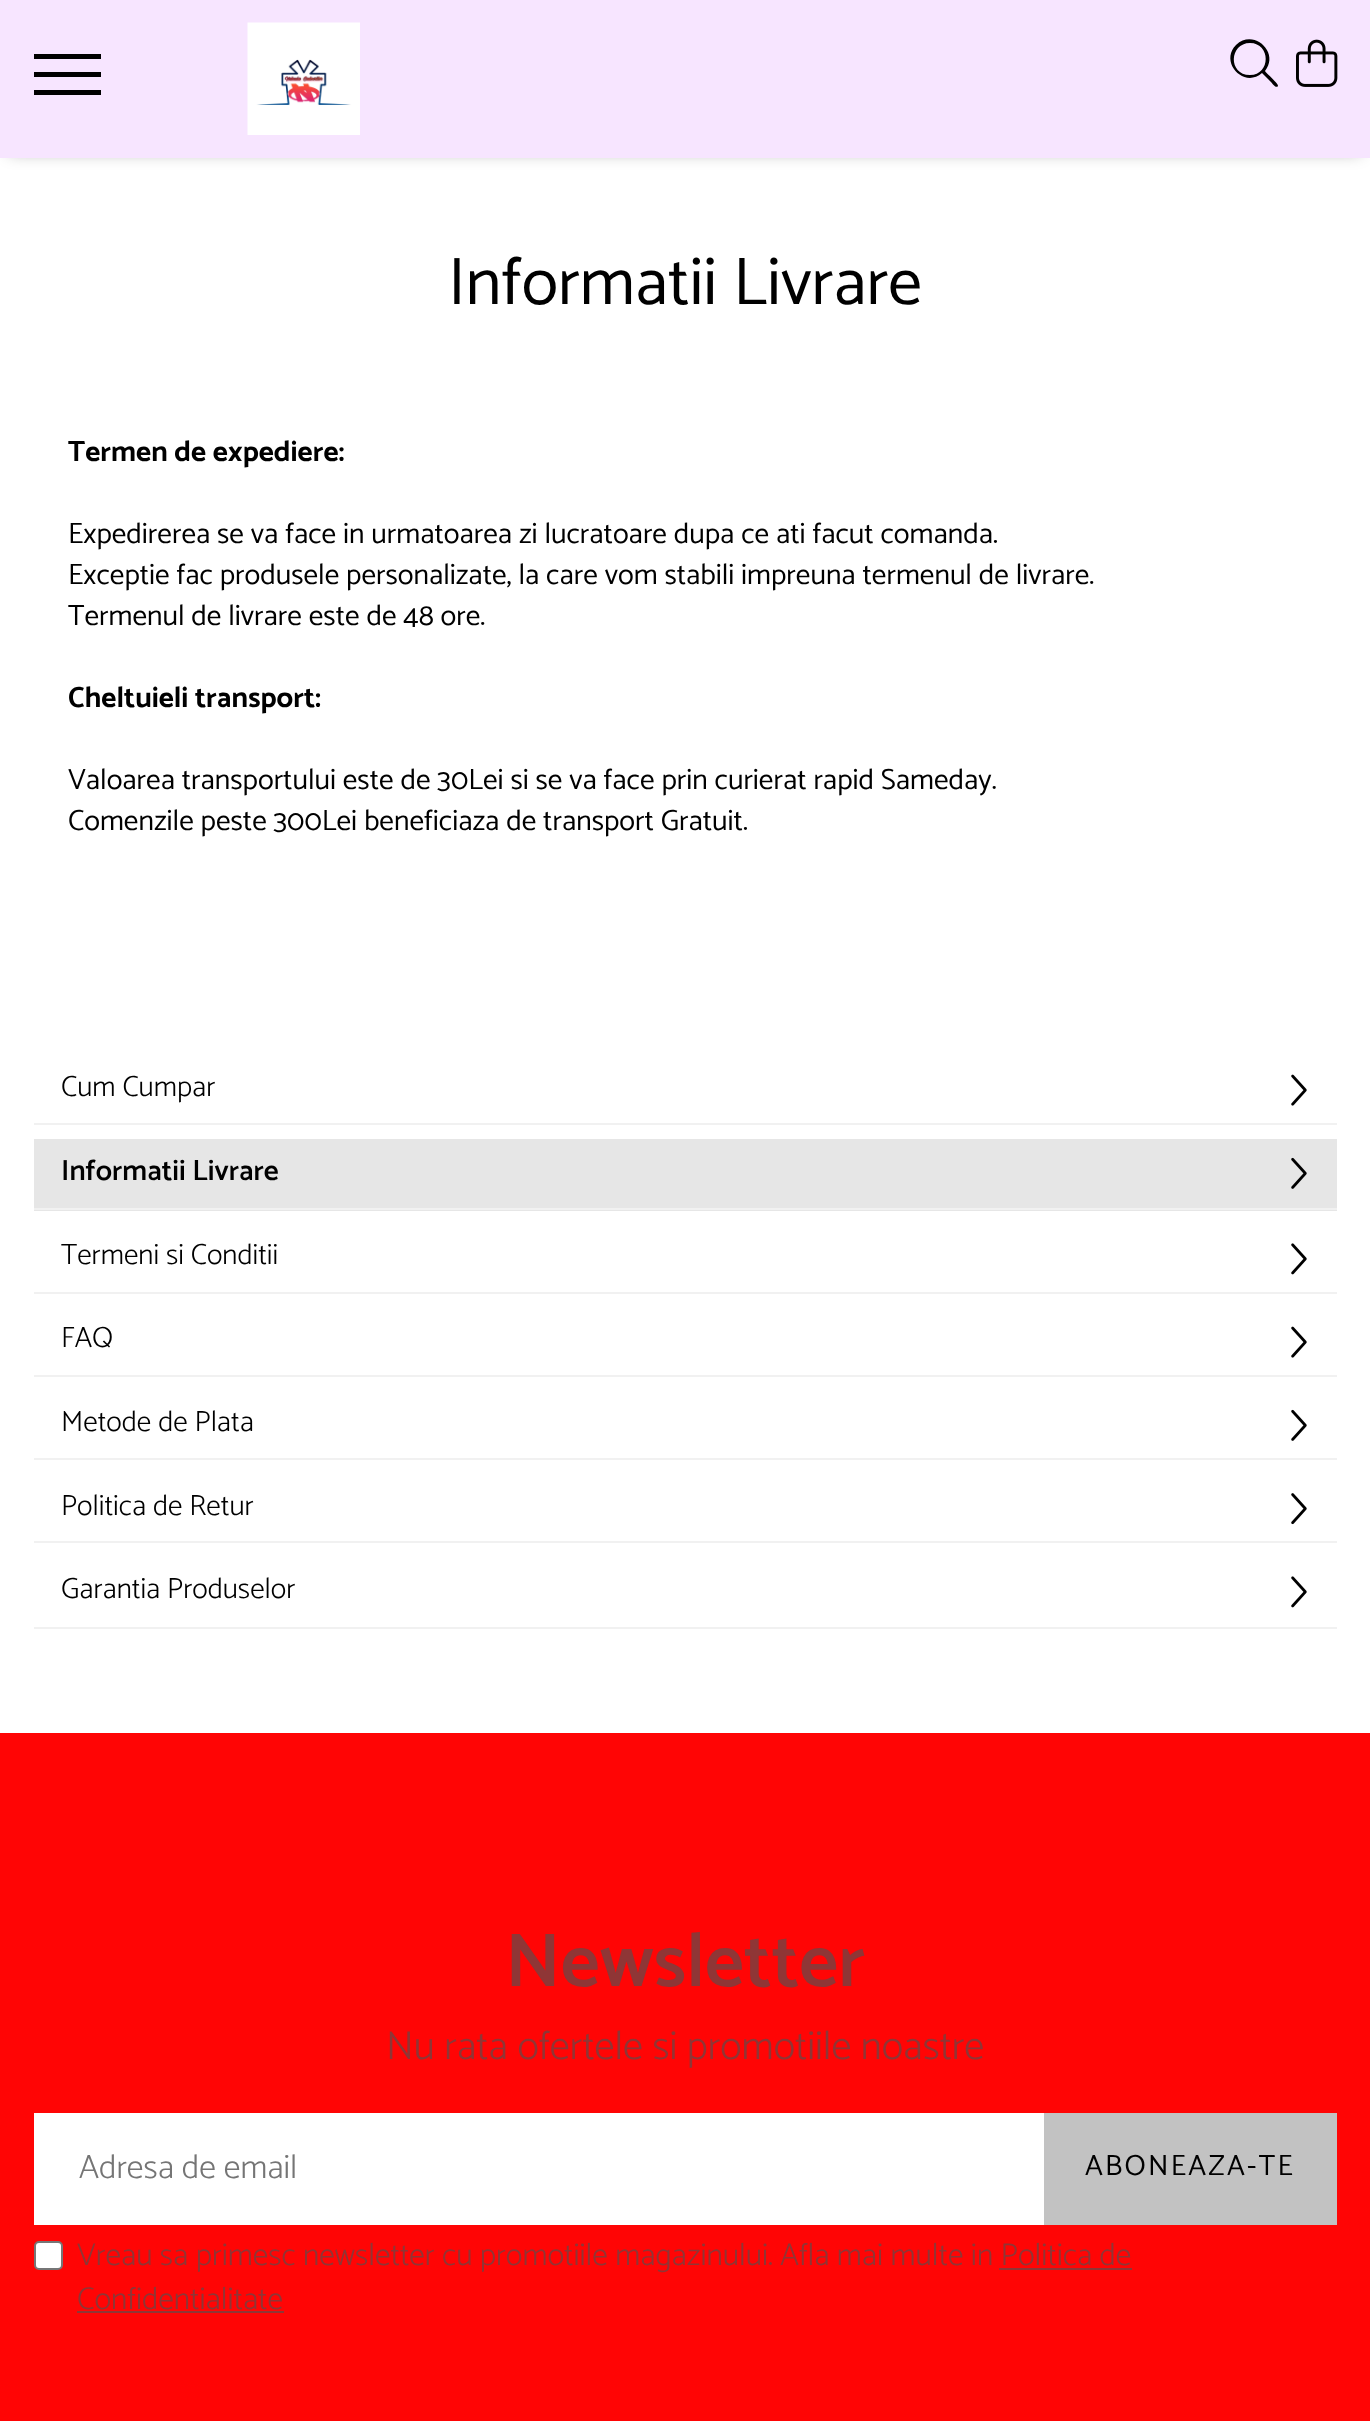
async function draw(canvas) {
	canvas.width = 1370;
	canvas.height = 2421;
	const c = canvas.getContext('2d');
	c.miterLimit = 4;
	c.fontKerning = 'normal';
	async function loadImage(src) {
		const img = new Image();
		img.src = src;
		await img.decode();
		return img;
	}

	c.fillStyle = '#fff';
	c.fillRect(0, 0, 1370, 2421);
	c.fillStyle = '#0000004d';
	c.filter = 'blur(8px)';
	c.beginPath();
	c.rect(9, 14, 1352, 139);
	c.fill();
	c.filter = 'none';
	for (const [x, y, w, h, color] of [
		[0, 0, 1370, 158, '#f7e5ff'],
		[34, 72, 67, 5, '#000'],
		[34, 54, 67, 5, '#000'],
		[34, 90, 67, 5, '#000'],
	]) {
		c.fillStyle = color;
		c.fillRect(x, y, w, h);
	}
	c.drawImage(await loadImage('img1.png'), 247, 22, 113, 113);
	c.beginPath();
	c.moveTo(1265, 71);
	c.bezierCurveTo(1280, 53, 1254, 28, 1236, 45);
	c.bezierCurveTo(1219, 62, 1244, 89, 1262, 73);
	c.lineTo(1271, 82);
	c.bezierCurveTo(1272, 83, 1276, 89, 1278, 86);
	c.bezierCurveTo(1279, 84, 1266, 73, 1265, 71);
	c.closePath();
	c.moveTo(1250, 75);
	c.bezierCurveTo(1228, 75, 1229, 43, 1250, 43);
	c.bezierCurveTo(1271, 43, 1271, 75, 1250, 75);
	c.closePath();
	c.fill();
	c.drawImage(await loadImage('img2.png'), 1296, 39, 42, 48);
	c.font = '67.5px Catamaran';
	c.fillText('Informatii Livrare', 448, 304);
	c.font = 'bold 29.25px Catamaran';
	c.fillText('Termen de expediere:', 68, 461);
	c.font = '29.25px Catamaran';
	for (const [text, x, y] of [
		['Expedirerea se va face in urmatoarea zi lucratoare dupa ce ati facut comanda.', 68, 543],
		['Exceptie fac produsele personalizate, la care vom stabili impreuna termenul de livrare.', 68, 584],
		['Termenul de livrare este de 48 ore.', 68, 625],
	]) {
		c.fillText(text, x, y);
	}
	c.font = 'bold 29.25px Catamaran';
	c.fillText('Cheltuieli transport:', 68, 707);
	c.font = '29.25px Catamaran';
	c.fillText('Valoarea transportului este de 30Lei si se va face prin curierat rapid Sameday.', 68, 789);
	c.fillText('Comenzile peste 300Lei beneficiaza de transport Gratuit.', 68, 830);
	c.fillStyle = '#f1f1f1';
	c.fillRect(34, 1123, 1303, 2);
	c.font = '300 29.25px Catamaran';
	c.fillStyle = '#000';
	c.fillText('Cum Cumpar', 61, 1096);
	c.drawImage(await loadImage('img3.png'), 1291, 1074, 16, 32);
	c.fillStyle = '#e6e6e6';
	c.fillRect(34, 1139, 1303, 72);
	c.fillStyle = '#f1f1f1';
	c.fillRect(34, 1208, 1303, 2);
	c.font = '600 29.25px Catamaran';
	c.fillStyle = '#000';
	c.fillText('Informatii Livrare', 61, 1180);
	c.drawImage(await loadImage('img4.png'), 1291, 1157, 16, 32);
	c.fillStyle = '#f1f1f1';
	c.fillRect(34, 1292, 1303, 2);
	c.font = '300 29.25px Catamaran';
	c.fillStyle = '#000';
	c.fillText('Termeni si Conditii', 61, 1264);
	c.drawImage(await loadImage('img5.png'), 1291, 1243, 16, 32);
	c.fillStyle = '#f1f1f1';
	c.fillRect(34, 1375, 1303, 2);
	c.fillStyle = '#000';
	c.fillText('FAQ', 61, 1347);
	c.drawImage(await loadImage('img3.png'), 1291, 1326, 16, 32);
	c.fillStyle = '#f1f1f1';
	c.fillRect(34, 1458, 1303, 2);
	c.fillStyle = '#000';
	c.fillText('Metode de Plata', 61, 1431);
	c.drawImage(await loadImage('img6.png'), 1291, 1409, 16, 32);
	c.fillStyle = '#f1f1f1';
	c.fillRect(34, 1541, 1303, 2);
	c.fillStyle = '#000';
	c.fillText('Politica de Retur', 61, 1515);
	c.drawImage(await loadImage('img7.png'), 1291, 1493, 16, 32);
	c.fillStyle = '#f1f1f1';
	c.fillRect(34, 1627, 1303, 2);
	c.fillStyle = '#000';
	c.fillText('Garantia Produselor', 61, 1598);
	c.drawImage(await loadImage('img5.png'), 1291, 1576, 16, 32);
	c.fillStyle = '#ff0505';
	c.fillRect(0, 1733, 1370, 688);
	c.font = '600 76.5px Catamaran';
	c.fillStyle = '#8f3636';
	c.fillText('Newsletter', 505, 1986);
	c.font = '300 40.5px Catamaran';
	c.fillText('Nu rata ofertele si promotiile noastre', 386, 2059);
	c.fillStyle = '#fff';
	c.fillRect(34, 2113, 1010, 112);
	c.font = '300 33.75px Catamaran';
	c.fillStyle = '#757575';
	c.fillText('Adresa de email', 79, 2178);
	c.fillStyle = '#c2c2c2';
	c.fillRect(1044, 2113, 293, 112);
	c.letterSpacing = '2.25px';
	c.font = '29.25px Catamaran';
	c.fillStyle = '#000';
	c.fillText('ABONEAZA-TE', 1085, 2175);
	c.fillStyle = '#fff';
	c.beginPath();
	c.roundRect(35, 2242, 27, 27, 4);
	c.fill();
	c.strokeStyle = '#767676';
	c.lineWidth = 2;
	c.stroke();
	c.letterSpacing = '0px';
	c.font = '300 31.5px Catamaran';
	c.fillStyle = '#8f3636';
	c.fillText('Vreau sa primesc newsletter cu promotiile magazinului. Afla mai multe in Politica de', 77, 2265);
	c.fillText('Confidentialitate', 77, 2309);
	c.fillRect(999, 2268, 133, 2);
	c.fillRect(77, 2311, 207, 2);
}

draw(document.querySelector('canvas'));
